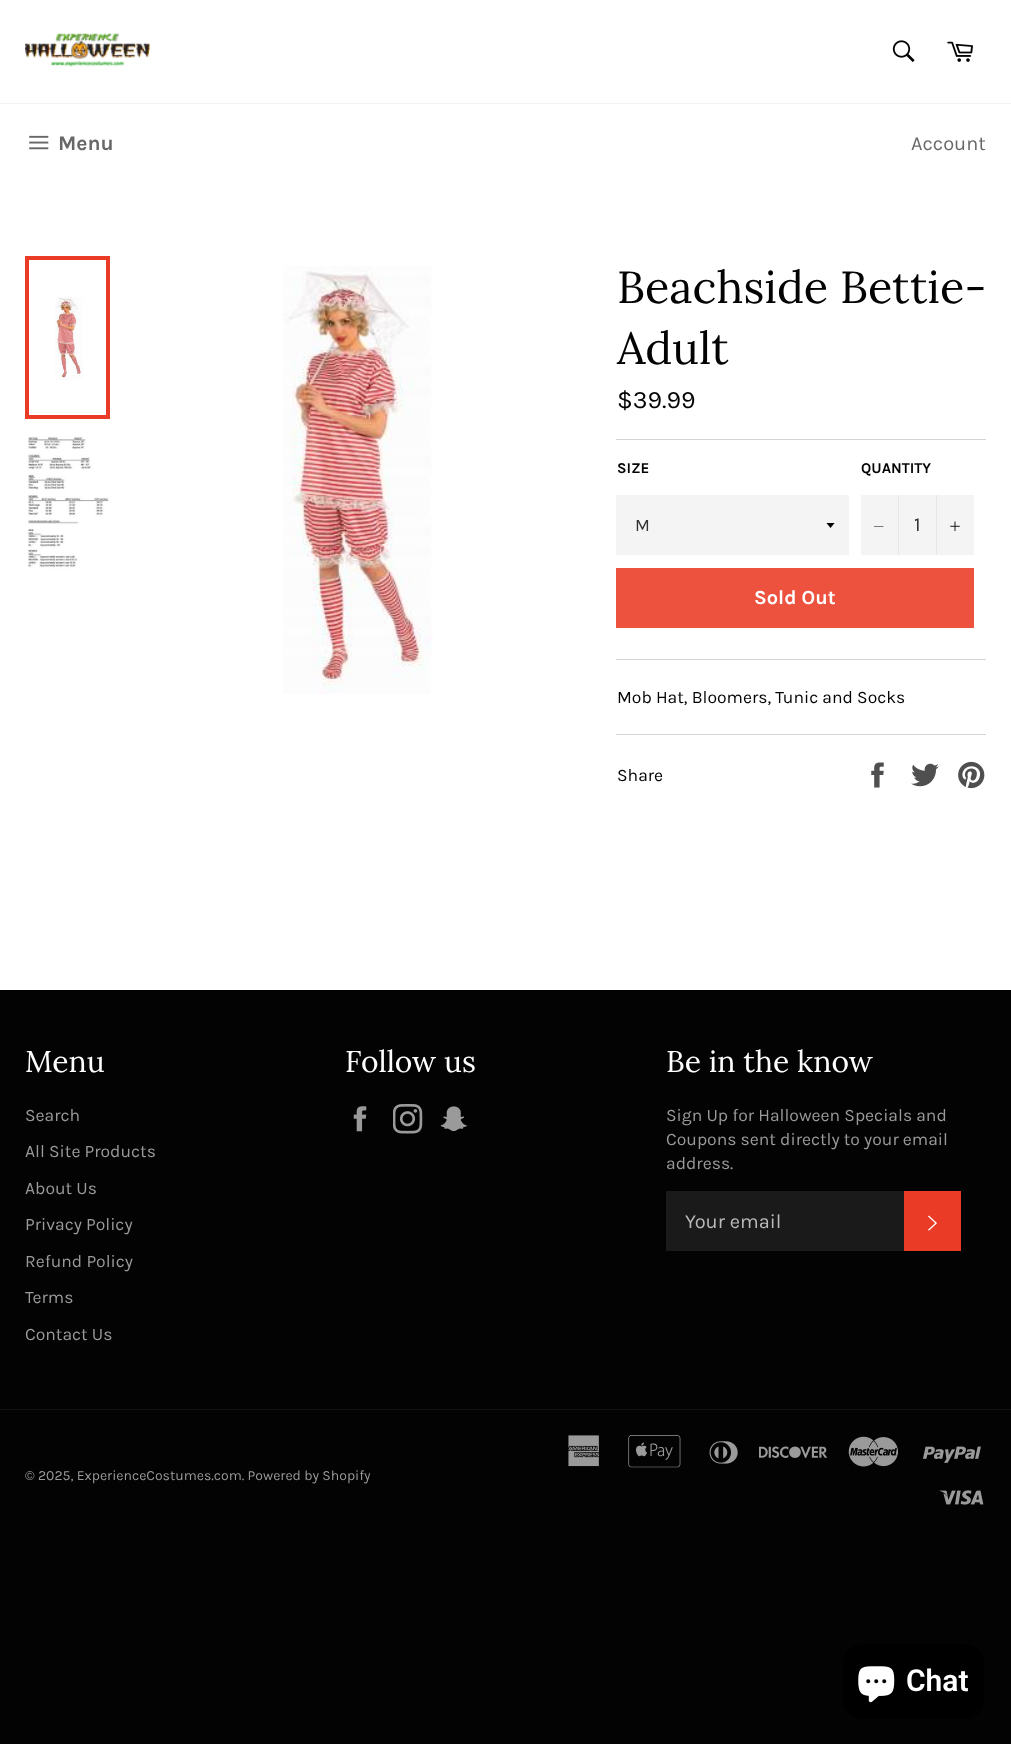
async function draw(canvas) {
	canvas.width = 1011;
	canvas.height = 1744;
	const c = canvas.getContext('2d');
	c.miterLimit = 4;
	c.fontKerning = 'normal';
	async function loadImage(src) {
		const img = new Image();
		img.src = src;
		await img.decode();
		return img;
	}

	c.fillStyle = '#030303';
	c.fillRect(0, 0, 1011, 1744);
	c.fillStyle = '#fff';
	c.fillRect(0, 0, 1011, 990);
	c.drawImage(await loadImage('img1.png'), 25, 33, 125, 34);
	c.drawImage(await loadImage('img2.png'), 892, 40, 23, 22);
	c.drawImage(await loadImage('img3.png'), 947, 41, 26, 21);
	c.fillStyle = '#f2f2f2';
	c.fillRect(0, 103, 1011, 1);
	c.drawImage(await loadImage('img4.png'), 29, 135, 20, 15);
	c.font = 'bold 21px Karla';
	c.fillStyle = '#686868';
	c.fillText('Menu', 58, 150);
	c.font = '20px Karla';
	c.fillText('Account', 911, 150);
	c.drawImage(await loadImage('img5.png'), 55, 297, 28, 83);
	c.strokeStyle = '#ea3b27';
	c.lineWidth = 4;
	c.strokeRect(27, 258, 81, 159);
	c.drawImage(await loadImage('img6.png'), 28, 436, 81, 133);
	c.drawImage(await loadImage('img7.png'), 283, 266, 150, 428);
	c.font = '45px Lora';
	c.fillStyle = '#030303';
	c.fillText('Beachside Bettie-', 617, 303);
	c.fillText('Adult', 617, 364);
	c.font = '25px Karla';
	c.fillText('$39.99', 617, 408);
	c.fillStyle = '#d6d5d5';
	c.fillRect(616, 439, 370, 1);
	c.font = 'bold 15px Karla';
	c.fillStyle = '#030303';
	c.fillText('SIZE', 617, 473);
	c.fillStyle = '#f4f4f4';
	c.fillRect(616, 495, 233, 60);
	c.save();
	c.beginPath();
	c.rect(826, 523, 10, 6);
	c.clip();
	c.fillStyle = '#030303';
	c.beginPath();
	c.moveTo(826, 522.5);
	c.lineTo(830.5, 528);
	c.lineTo(835, 522.5);
	c.closePath();
	c.fill();
	c.restore();
	c.font = '17.5px Karla';
	c.fillStyle = '#333';
	c.fillText('M', 635, 531);
	c.font = 'bold 15px Karla';
	c.fillStyle = '#030303';
	c.fillText('QUANTITY', 861, 473);
	c.fillStyle = '#f4f4f4';
	c.fillRect(861, 495, 113, 60);
	c.fillStyle = '#e7e7e7';
	c.fillRect(898, 495, 1, 60);
	c.fillStyle = '#030303';
	c.beginPath();
	c.moveTo(883.5, 526);
	c.lineTo(883.5, 526.5);
	c.lineTo(874, 526.5);
	c.lineTo(874, 526);
	c.closePath();
	c.fill('evenodd');
	c.font = '20px Karla';
	c.fillStyle = '#333';
	c.fillText('1', 914, 531);
	c.fillStyle = '#e7e7e7';
	c.fillRect(936, 495, 1, 60);
	c.drawImage(await loadImage('img8.png'), 950, 521, 10, 10);
	c.fillStyle = '#ec523e';
	c.fillRect(616, 568, 358, 60);
	c.font = 'bold 20px Karla';
	c.fillStyle = '#fff';
	c.fillText('Sold Out', 754, 604);
	c.fillStyle = '#d6d5d5';
	c.fillRect(616, 659, 370, 1);
	c.font = '17.5px Karla';
	c.fillStyle = '#030303';
	c.fillText('Mob Hat, Bloomers, Tunic and Socks', 617, 703);
	c.fillStyle = '#d6d5d5';
	c.fillRect(616, 734, 370, 1);
	c.fillStyle = '#030303';
	c.fillText('Share', 617, 781);
	c.drawImage(await loadImage('img9.png'), 871, 762, 13, 26);
	c.drawImage(await loadImage('img10.png'), 911, 763, 28, 24);
	c.drawImage(await loadImage('img11.png'), 958, 761, 27, 28);
	c.font = '30px Lora';
	c.fillStyle = '#fff';
	c.fillText('Menu', 25, 1072);
	c.font = '17.5px Karla';
	c.fillStyle = '#9a9a9a';
	for (const [text, x, y] of [
		['Search', 25, 1121],
		['All Site Products', 25, 1157],
		['About Us', 25, 1194],
		['Privacy Policy', 25, 1230],
		['Refund Policy', 25, 1267],
		['Terms', 25, 1303],
		['Contact Us', 25, 1340],
	]) {
		c.fillText(text, x, y);
	}
	c.font = '30px Lora';
	c.fillStyle = '#fff';
	c.fillText('Follow us', 345, 1072);
	c.drawImage(await loadImage('img12.png'), 353, 1106, 14, 26);
	c.drawImage(await loadImage('img13.png'), 393, 1104, 30, 30);
	c.drawImage(await loadImage('img14.png'), 440, 1106, 27, 26);
	c.fillText('Be in the know', 666, 1072);
	c.font = '17.5px Karla';
	c.fillStyle = '#9a9a9a';
	for (const [text, x, y] of [
		['Sign Up for Halloween Specials and', 666, 1121],
		['Coupons sent directly to your email', 666, 1145],
		['address.', 666, 1169],
	]) {
		c.fillText(text, x, y);
	}
	c.fillStyle = '#1a1a1a';
	c.fillRect(666, 1191, 238, 60);
	c.font = '20px Karla';
	c.fillStyle = '#bababa';
	c.fillText('Your email', 685, 1228);
	c.fillStyle = '#ea3b27';
	c.fillRect(904, 1191, 57, 60);
	c.drawImage(await loadImage('img15.png'), 928, 1215, 9, 16);
	c.fillStyle = '#101010';
	c.fillRect(0, 1409, 1011, 1);
	c.font = '14px Karla';
	c.fillStyle = '#9a9a9a';
	c.fillText('© 2025, ExperienceCostumes.com. Powered by Shopify', 25, 1480);
	c.drawImage(await loadImage('img16.png'), 568, 1435, 31, 32);
	c.drawImage(await loadImage('img17.png'), 628, 1435, 53, 33);
	c.drawImage(await loadImage('img18.png'), 709, 1441, 29, 23);
	c.drawImage(await loadImage('img19.png'), 759, 1446, 69, 12);
	c.drawImage(await loadImage('img20.png'), 848, 1436, 50, 31);
	c.drawImage(await loadImage('img21.png'), 923, 1446, 58, 17);
	c.drawImage(await loadImage('img22.png'), 939, 1490, 45, 15);
	c.fillStyle = '#000';
	c.beginPath();
	c.roundRect(843, 1644, 141, 75, 20);
	c.fill();
	c.drawImage(await loadImage('img23.png'), 858, 1666, 37, 37);
	c.font = '600 30px Roboto';
	c.fillStyle = '#fff';
	c.fillText('Chat', 906, 1691);
}

draw(document.querySelector('canvas'));
